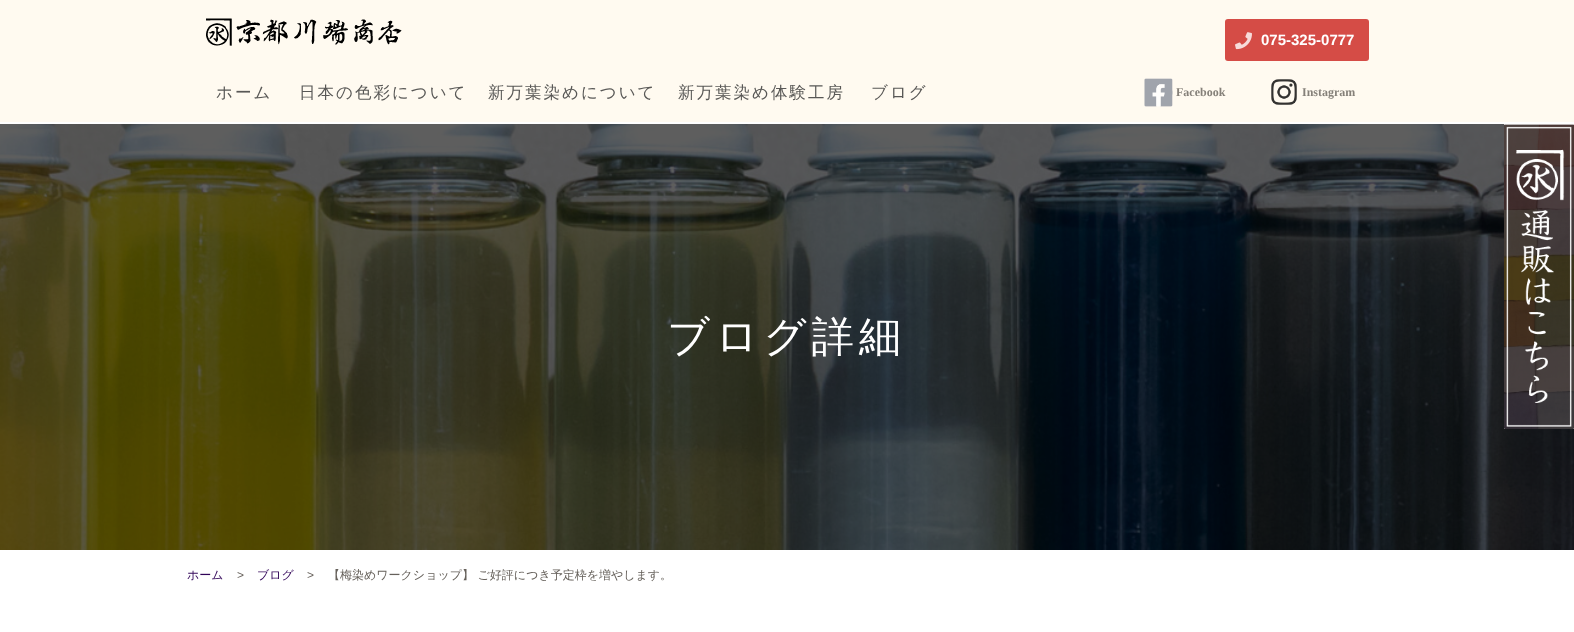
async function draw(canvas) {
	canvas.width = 1574;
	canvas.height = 632;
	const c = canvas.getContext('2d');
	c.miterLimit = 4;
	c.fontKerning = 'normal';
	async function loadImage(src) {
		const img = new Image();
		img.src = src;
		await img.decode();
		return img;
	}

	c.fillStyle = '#fff';
	c.fillRect(0, 0, 1574, 632);
	c.fillStyle = '#fffaf0';
	c.fillRect(0, 0, 1574, 122);
	c.drawImage(await loadImage('img1.png'), 206, 18, 196, 28);
	c.fillStyle = '#d54c46';
	c.beginPath();
	c.roundRect(1225, 19, 144, 42, 3);
	c.fill();
	c.drawImage(await loadImage('img2.png'), 1235, 32, 17, 18);
	c.font = 'bold 15px Liberation Sans';
	c.fillStyle = '#fff';
	c.fillText('075-325-0777', 1261, 45);
	c.letterSpacing = '2px';
	c.font = '500 16.5px WenQuanYi Zen Hei';
	c.fillStyle = '#595856';
	for (const [text, x, y] of [
		['ホーム', 216, 98],
		['日本の色彩について', 299, 98],
		['新万葉染めについて', 488, 98],
		['新万葉染め体験工房', 678, 98],
		['ブログ', 871, 98],
	]) {
		c.fillText(text, x, y);
	}
	c.drawImage(await loadImage('img3.png'), 1144, 78, 29, 29);
	c.letterSpacing = '0px';
	c.font = 'bold 12px Liberation Serif';
	c.fillStyle = '#858079';
	c.fillText('Facebook', 1176, 96);
	c.drawImage(await loadImage('img4.png'), 1271, 79, 26, 26);
	c.fillText('Instagram', 1302, 96);
	c.drawImage(await loadImage('img5.png'), 0, 124, 1574, 426);
	c.letterSpacing = '5px';
	c.font = '500 42.25px WenQuanYi Zen Hei';
	c.fillStyle = '#fff';
	c.fillText('ブログ詳細', 667, 351);
	c.fillRect(1504, 124, 70, 305);
	c.drawImage(await loadImage('img6.png'), 1504, 124, 70, 305);
	c.letterSpacing = '0px';
	c.font = '500 12px WenQuanYi Zen Hei';
	c.fillStyle = '#310458';
	c.fillText('ホーム', 187, 579);
	c.font = '12px Liberation Sans';
	c.fillStyle = '#66615b';
	c.fillText('>', 237, 579);
	c.font = '500 12px WenQuanYi Zen Hei';
	c.fillStyle = '#310458';
	c.fillText('ブログ', 257, 579);
	c.font = '12px Liberation Sans';
	c.fillStyle = '#66615b';
	c.fillText('>', 307, 579);
	c.font = '500 12px WenQuanYi Zen Hei';
	c.fillText('【梅染めワークショップ】 ご好評につき予定枠を増やします。', 328, 579);
}

draw(document.querySelector('canvas'));
